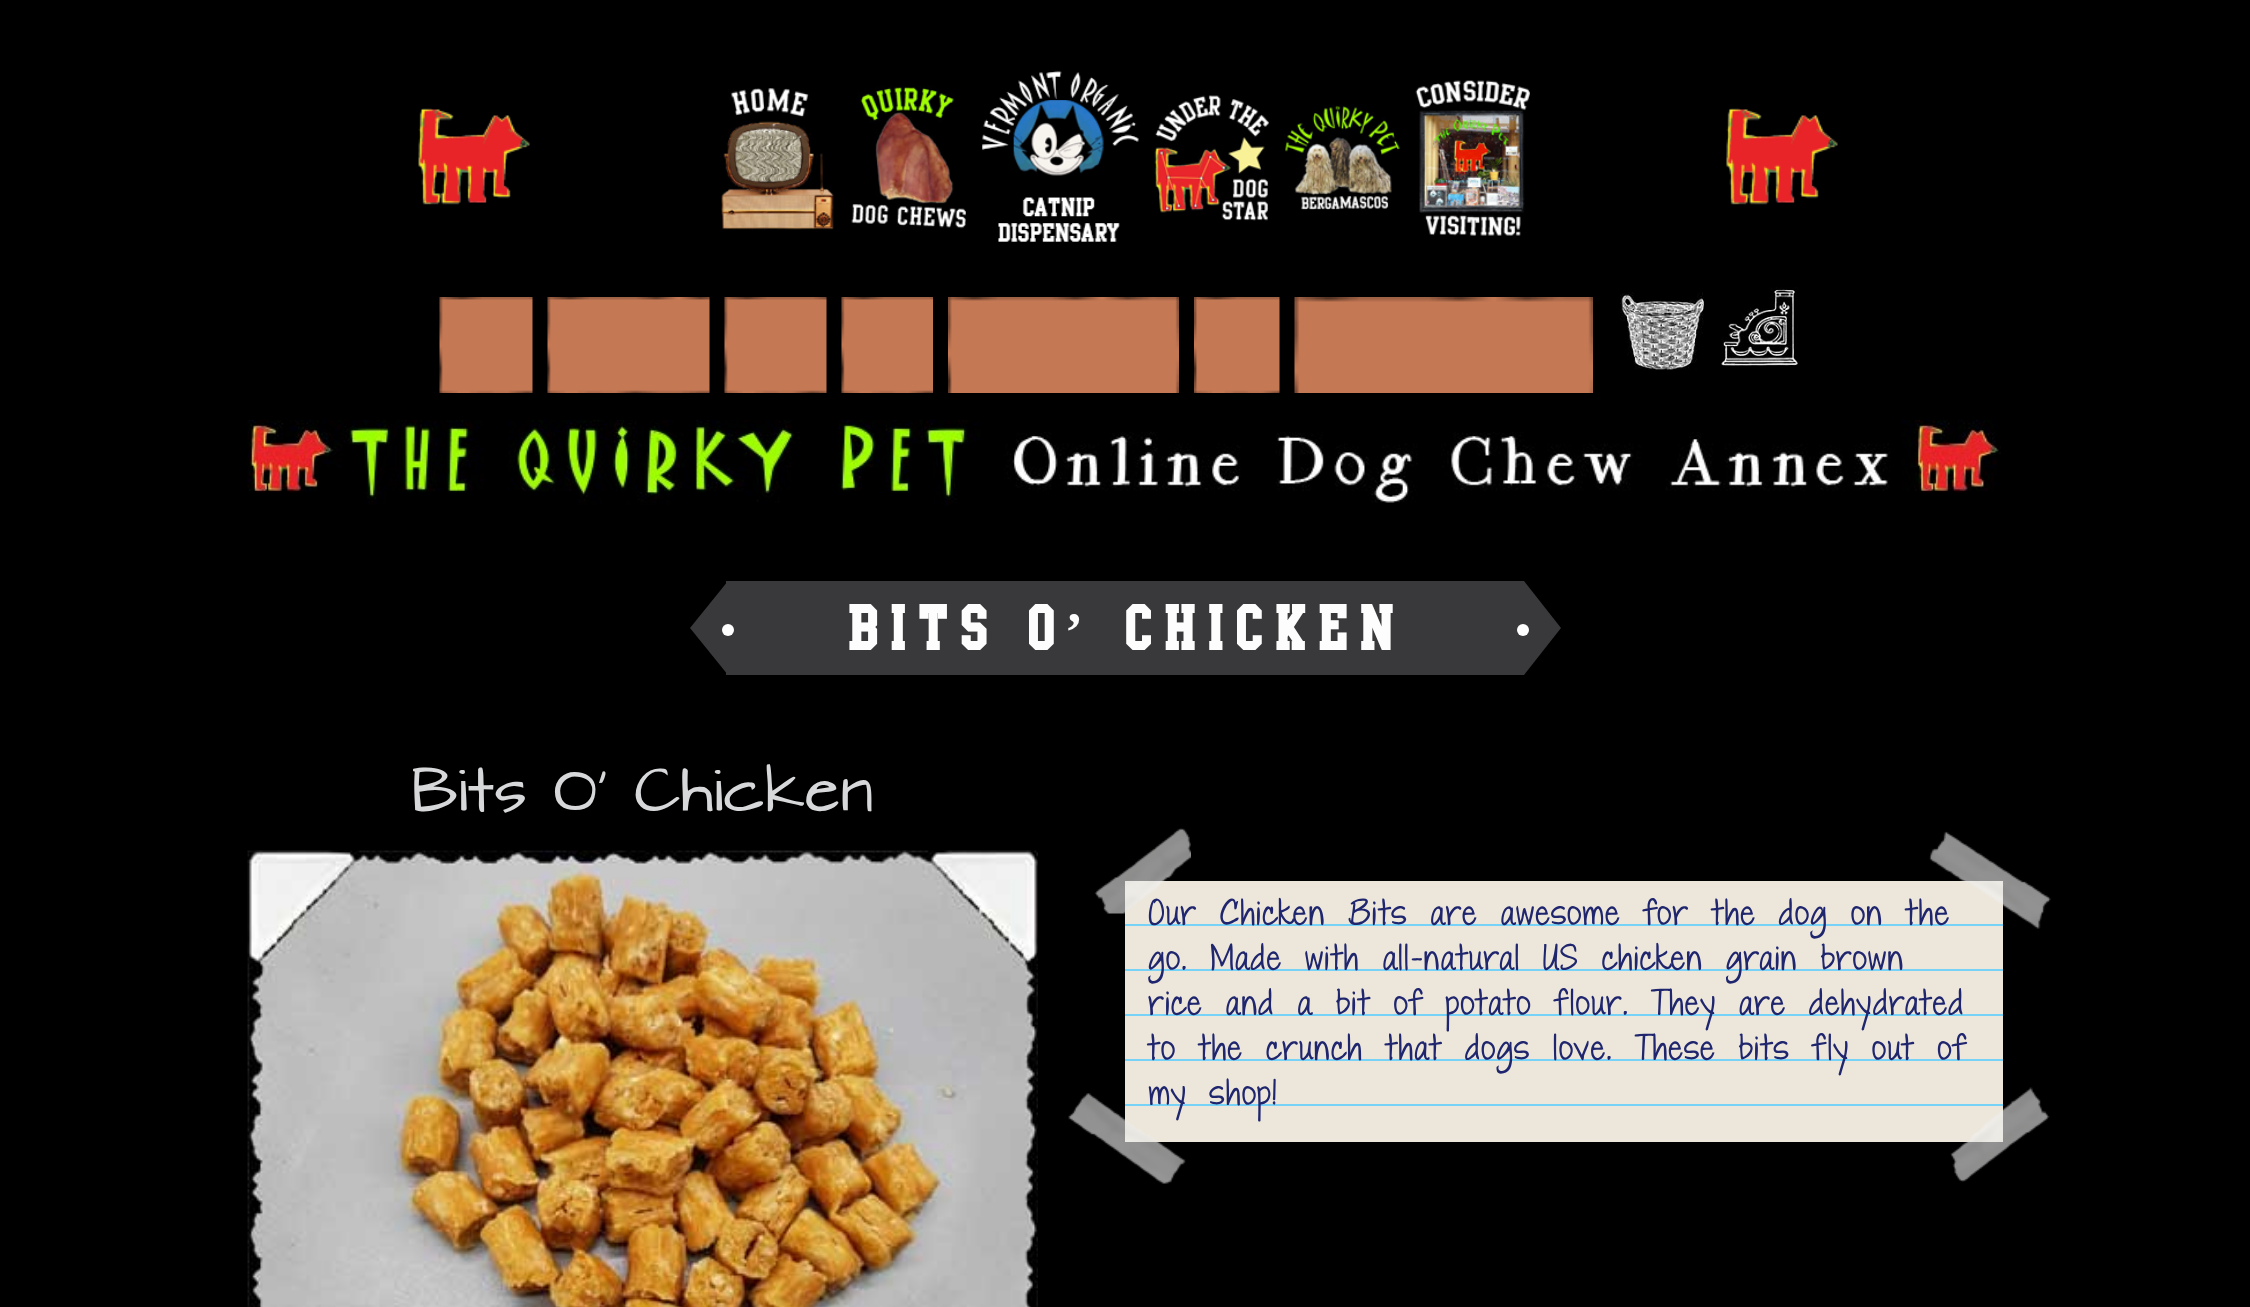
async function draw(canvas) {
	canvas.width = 2250;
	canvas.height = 1307;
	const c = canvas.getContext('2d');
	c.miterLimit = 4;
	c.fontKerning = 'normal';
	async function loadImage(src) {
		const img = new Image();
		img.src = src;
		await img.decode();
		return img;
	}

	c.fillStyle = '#000';
	c.fillRect(0, 0, 2250, 1307);
	c.drawImage(await loadImage('img1.png'), 418, 108, 112, 97);
	c.drawImage(await loadImage('img2.png'), 720, 88, 114, 142);
	c.drawImage(await loadImage('img3.png'), 851, 85, 115, 144);
	c.drawImage(await loadImage('img4.png'), 982, 70, 157, 172);
	c.drawImage(await loadImage('img5.png'), 1154, 95, 115, 126);
	c.drawImage(await loadImage('img6.png'), 1284, 105, 116, 105);
	c.drawImage(await loadImage('img7.png'), 1415, 80, 115, 156);
	c.drawImage(await loadImage('img8.png'), 1726, 108, 112, 97);
	c.drawImage(await loadImage('img9.png'), 439, 297, 94, 96);
	c.drawImage(await loadImage('img10.png'), 547, 297, 163, 96);
	c.drawImage(await loadImage('img11.png'), 724, 297, 103, 96);
	c.drawImage(await loadImage('img12.png'), 841, 297, 92, 96);
	c.drawImage(await loadImage('img13.png'), 948, 297, 231, 96);
	c.drawImage(await loadImage('img14.png'), 1194, 297, 86, 96);
	c.drawImage(await loadImage('img15.png'), 1294, 297, 299, 96);
	c.drawImage(await loadImage('img16.png'), 1620, 292, 84, 78);
	c.drawImage(await loadImage('img17.png'), 1721, 287, 77, 79);
	c.drawImage(await loadImage('img18.png'), 247, 420, 1754, 86);
	c.fillStyle = '#39393b';
	c.fillRect(726, 581, 798, 94);
	c.beginPath();
	c.moveTo(728, 675);
	c.lineTo(690, 628);
	c.lineTo(728, 581);
	c.closePath();
	c.fill();
	c.fillStyle = '#fff';
	c.beginPath();
	c.arc(728, 630, 6, 0, 2 * Math.PI);
	c.fill();
	c.letterSpacing = '12px';
	c.font = 'bold 54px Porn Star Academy';
	c.fillStyle = '#fdfdfd';
	c.fillText('Bits O', 846, 650);
	c.font = 'bold 54px Liberation Serif';
	c.fillText('’', 1065, 650);
	c.font = 'bold 54px Porn Star Academy';
	c.fillText('Chicken', 1122, 650);
	c.fillStyle = '#39393b';
	c.beginPath();
	c.moveTo(1524, 581);
	c.lineTo(1561, 628);
	c.lineTo(1524, 675);
	c.closePath();
	c.fill();
	c.fillStyle = '#fff';
	c.beginPath();
	c.arc(1523, 630, 6, 0, 2 * Math.PI);
	c.fill();
	c.letterSpacing = '0px';
	c.font = '52.5px Architects Daughter';
	c.fillStyle = '#d7d8da';
	c.fillText('Bits O’ Chicken', 411, 811);
	c.drawImage(await loadImage('img19.png'), 247, 850, 791, 457);
	for (const [x, y, w, h, color] of [
		[1125, 881, 878, 43, '#ede7db'],
		[1125, 924, 878, 2, '#76d2f7'],
		[1125, 926, 878, 43, '#ede7db'],
	]) {
		c.fillStyle = color;
		c.fillRect(x, y, w, h);
	}
	c.letterSpacing = '1.5px';
	c.wordSpacing = '7.5px';
	c.font = 'bold 28.5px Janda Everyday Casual';
	c.fillStyle = '#1f266e';
	c.fillText('Our Chicken Bits are awesome for the dog on the', 1148, 925);
	c.drawImage(await loadImage('img20.png'), 1094, 828, 97, 86);
	c.drawImage(await loadImage('img21.png'), 1929, 831, 122, 98);
	for (const [x, y, w, h, color] of [
		[1125, 969, 878, 2, '#76d2f7'],
		[1125, 971, 878, 43, '#ede7db'],
		[1125, 1014, 878, 2, '#76d2f7'],
		[1125, 1016, 878, 43, '#ede7db'],
		[1125, 1059, 878, 2, '#76d2f7'],
		[1125, 1061, 878, 43, '#ede7db'],
		[1125, 1104, 878, 2, '#76d2f7'],
		[1125, 1106, 878, 36, '#ede7db'],
	]) {
		c.fillStyle = color;
		c.fillRect(x, y, w, h);
	}
	c.fillStyle = '#1f266e';
	for (const [text, x, y] of [
		['go. Made with all-natural US chicken grain brown', 1148, 970],
		['rice and a bit of potato flour. They are dehydrated', 1148, 1015],
		['to the crunch that dogs love. These bits fly out of', 1148, 1060],
		['my shop!', 1148, 1105],
	]) {
		c.fillText(text, x, y);
	}
	c.drawImage(await loadImage('img22.png'), 1068, 1093, 118, 91);
	c.drawImage(await loadImage('img23.png'), 1950, 1087, 100, 95);
}

draw(document.querySelector('canvas'));
